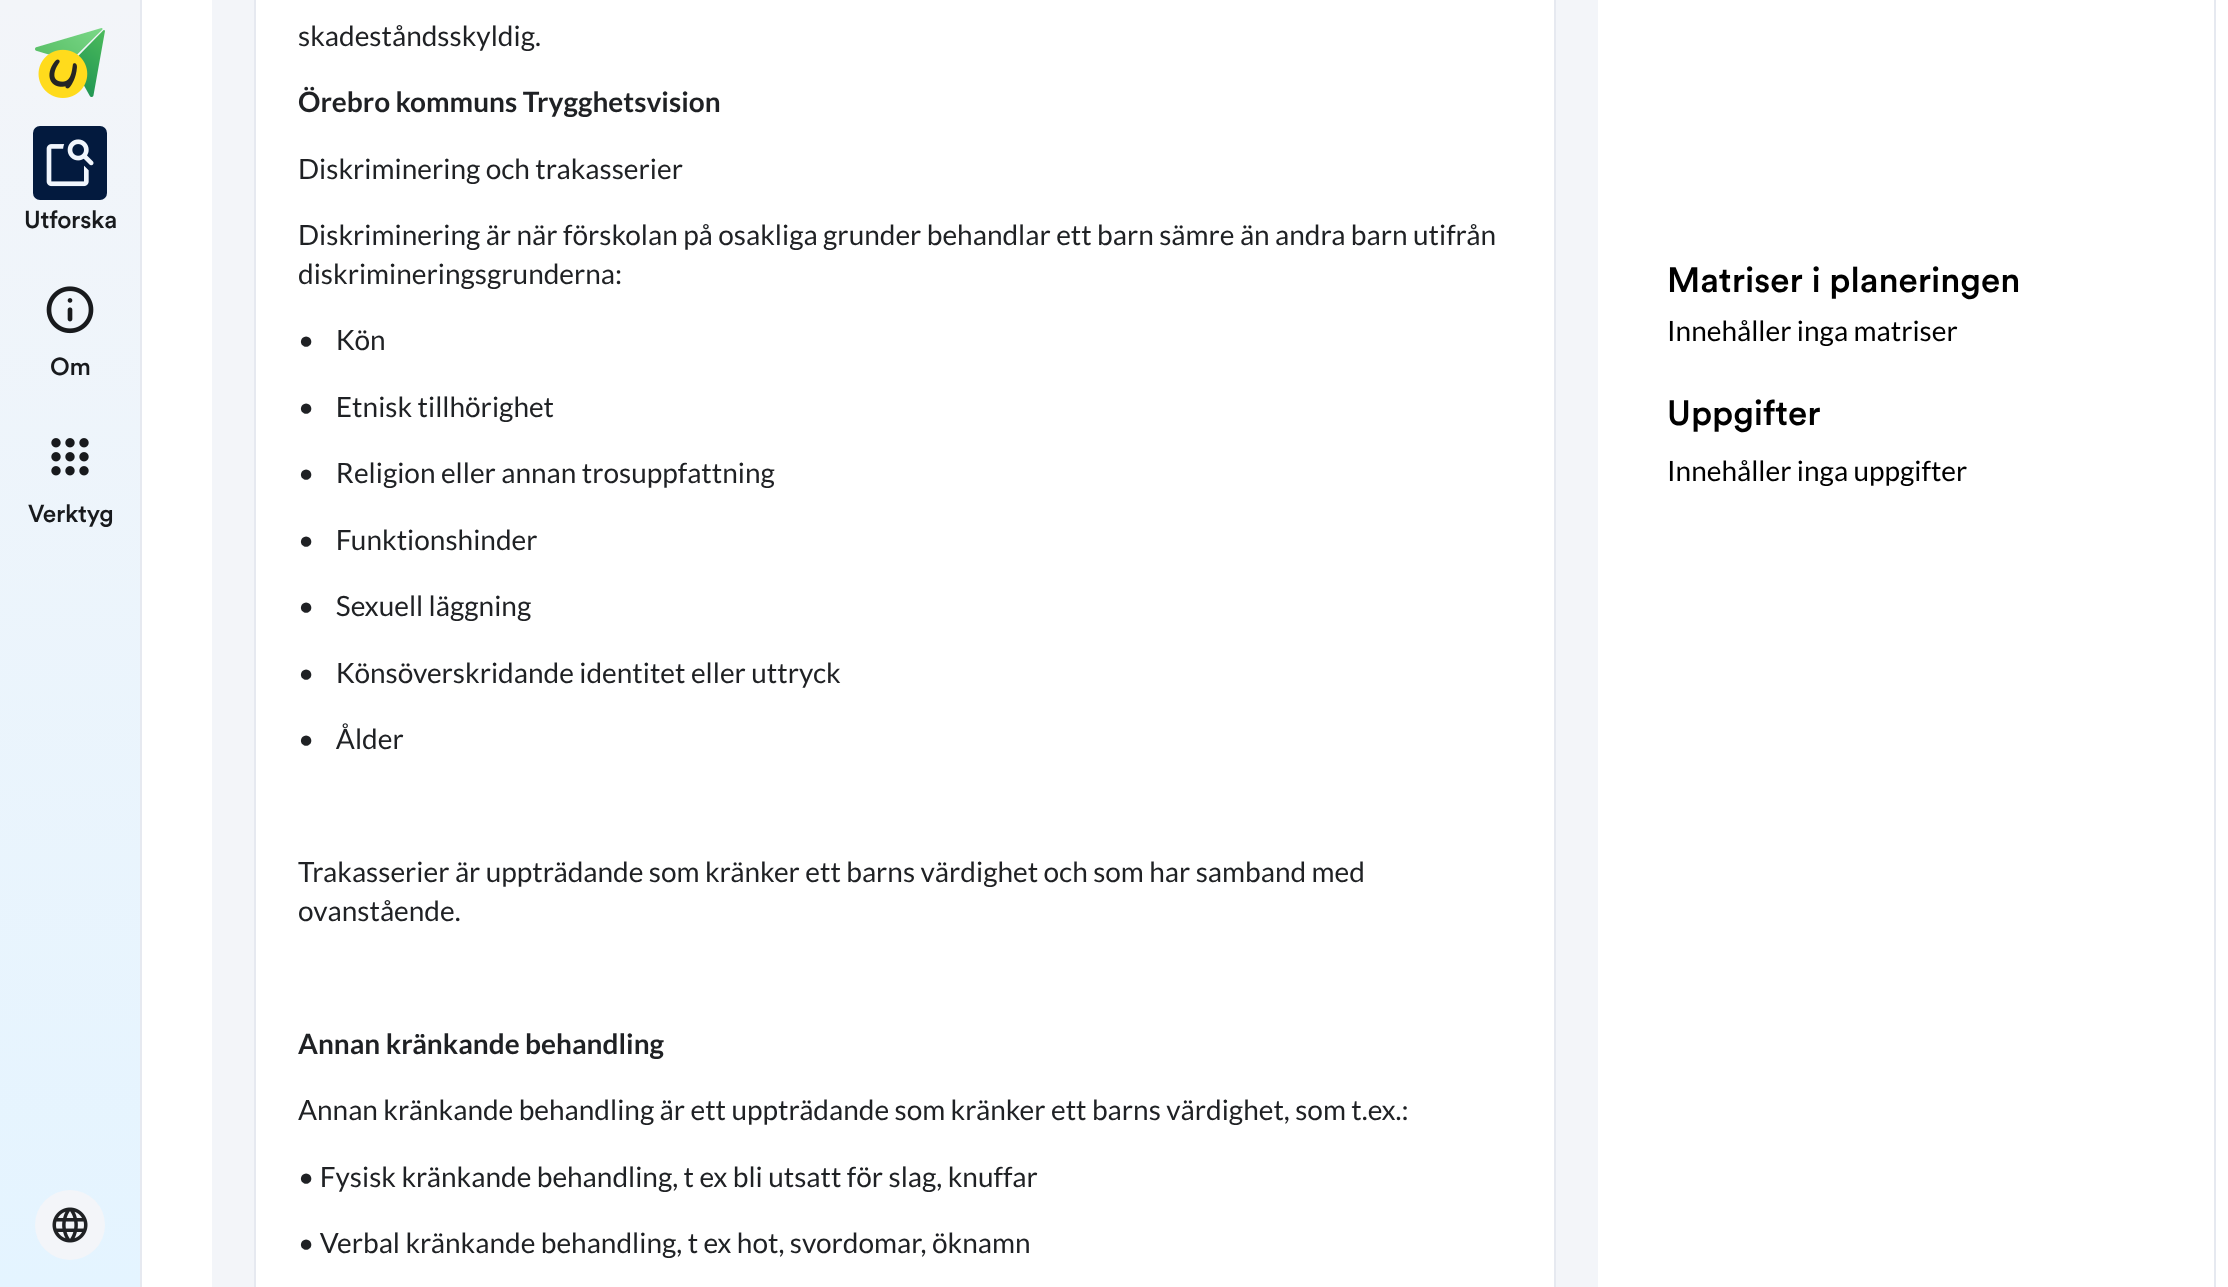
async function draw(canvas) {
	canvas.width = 2228;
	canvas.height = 1287;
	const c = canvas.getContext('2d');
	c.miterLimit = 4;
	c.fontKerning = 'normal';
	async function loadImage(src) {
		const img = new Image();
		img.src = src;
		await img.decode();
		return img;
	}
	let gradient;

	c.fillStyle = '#fff';
	c.fillRect(0, 0, 2228, 1287);
	gradient = c.createLinearGradient(70, 0, 70, 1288);
	gradient.addColorStop(0, '#f3f5f9');
	gradient.addColorStop(1, '#e4f4ff');
	c.fillStyle = gradient;
	c.fillRect(0, 0, 140, 1287);
	c.drawImage(await loadImage('img1.png'), 35, 28, 70, 70);
	c.fillStyle = '#031a3e';
	c.beginPath();
	c.roundRect(33, 126, 74, 74, 7);
	c.fill();
	c.drawImage(await loadImage('img2.png'), 46, 139, 48, 48);
	c.letterSpacing = '-0.25px';
	c.font = '500 24.5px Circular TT';
	c.fillStyle = '#181a1d';
	c.fillText('Utforska', 24, 228);
	c.drawImage(await loadImage('img3.png'), 46, 286, 48, 48);
	c.fillText('Om', 50, 375);
	c.drawImage(await loadImage('img4.png'), 51, 438, 38, 38);
	c.fillText('Verktyg', 28, 522);
	c.fillStyle = '#f3f5f9';
	c.beginPath();
	c.arc(70, 1225, 35, 0, 2 * Math.PI);
	c.fill();
	c.drawImage(await loadImage('img5.png'), 52, 1207, 36, 36);
	c.strokeStyle = '#e6e9f0';
	c.lineWidth = 2;
	c.strokeRect(141, -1, 2074, 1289);
	c.fillRect(212, 0, 1386, 1287);
	c.fillStyle = '#fff';
	c.beginPath();
	c.rect(255, -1, 1300, 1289);
	c.fill();
	c.stroke();
	c.letterSpacing = '0px';
	c.font = '28px Lato';
	c.fillStyle = '#1f2124';
	c.fillText('skadeståndsskyldig.', 298, 46);
	c.font = 'bold 28px Lato';
	c.fillText('Örebro kommuns Trygghetsvision', 298, 112);
	c.font = '28px Lato';
	for (const [text, x, y] of [
		['Diskriminering och trakasserier', 298, 179],
		['Diskriminering är när förskolan på osakliga grunder behandlar ett barn sämre än andra barn utifrån', 298, 245],
		['diskrimineringsgrunderna:', 298, 284],
		['•    Kön', 298, 350],
		['•    Etnisk tillhörighet', 298, 417],
		['•    Religion eller annan trosuppfattning', 298, 483],
		['•    Funktionshinder', 298, 550],
		['•    Sexuell läggning', 298, 616],
		['•    Könsöverskridande identitet eller uttryck', 298, 683],
		['•    Ålder', 298, 749],
		['Trakasserier är uppträdande som kränker ett barns värdighet och som har samband med', 298, 882],
		['ovanstående.', 298, 921],
	]) {
		c.fillText(text, x, y);
	}
	c.font = 'bold 28px Lato';
	c.fillText('Annan kränkande behandling', 298, 1054);
	c.font = '28px Lato';
	for (const [text, x, y] of [
		['Annan kränkande behandling är ett uppträdande som kränker ett barns värdighet, som t.ex.:', 298, 1120],
		['• Fysisk kränkande behandling, t ex bli utsatt för slag, knuffar', 298, 1187],
		['• Verbal kränkande behandling, t ex hot, svordomar, öknamn', 298, 1253],
	]) {
		c.fillText(text, x, y);
	}
	c.font = '500 35px Circular TT';
	c.fillStyle = '#000';
	c.fillText('Matriser i planeringen', 1667, 292);
	c.font = '28px Lato';
	c.fillText('Innehåller inga matriser', 1667, 341);
	c.font = '500 35px Circular TT';
	c.fillText('Uppgifter', 1667, 425);
	c.font = '28px Lato';
	c.fillText('Innehåller inga uppgifter', 1667, 481);
}

draw(document.querySelector('canvas'));
